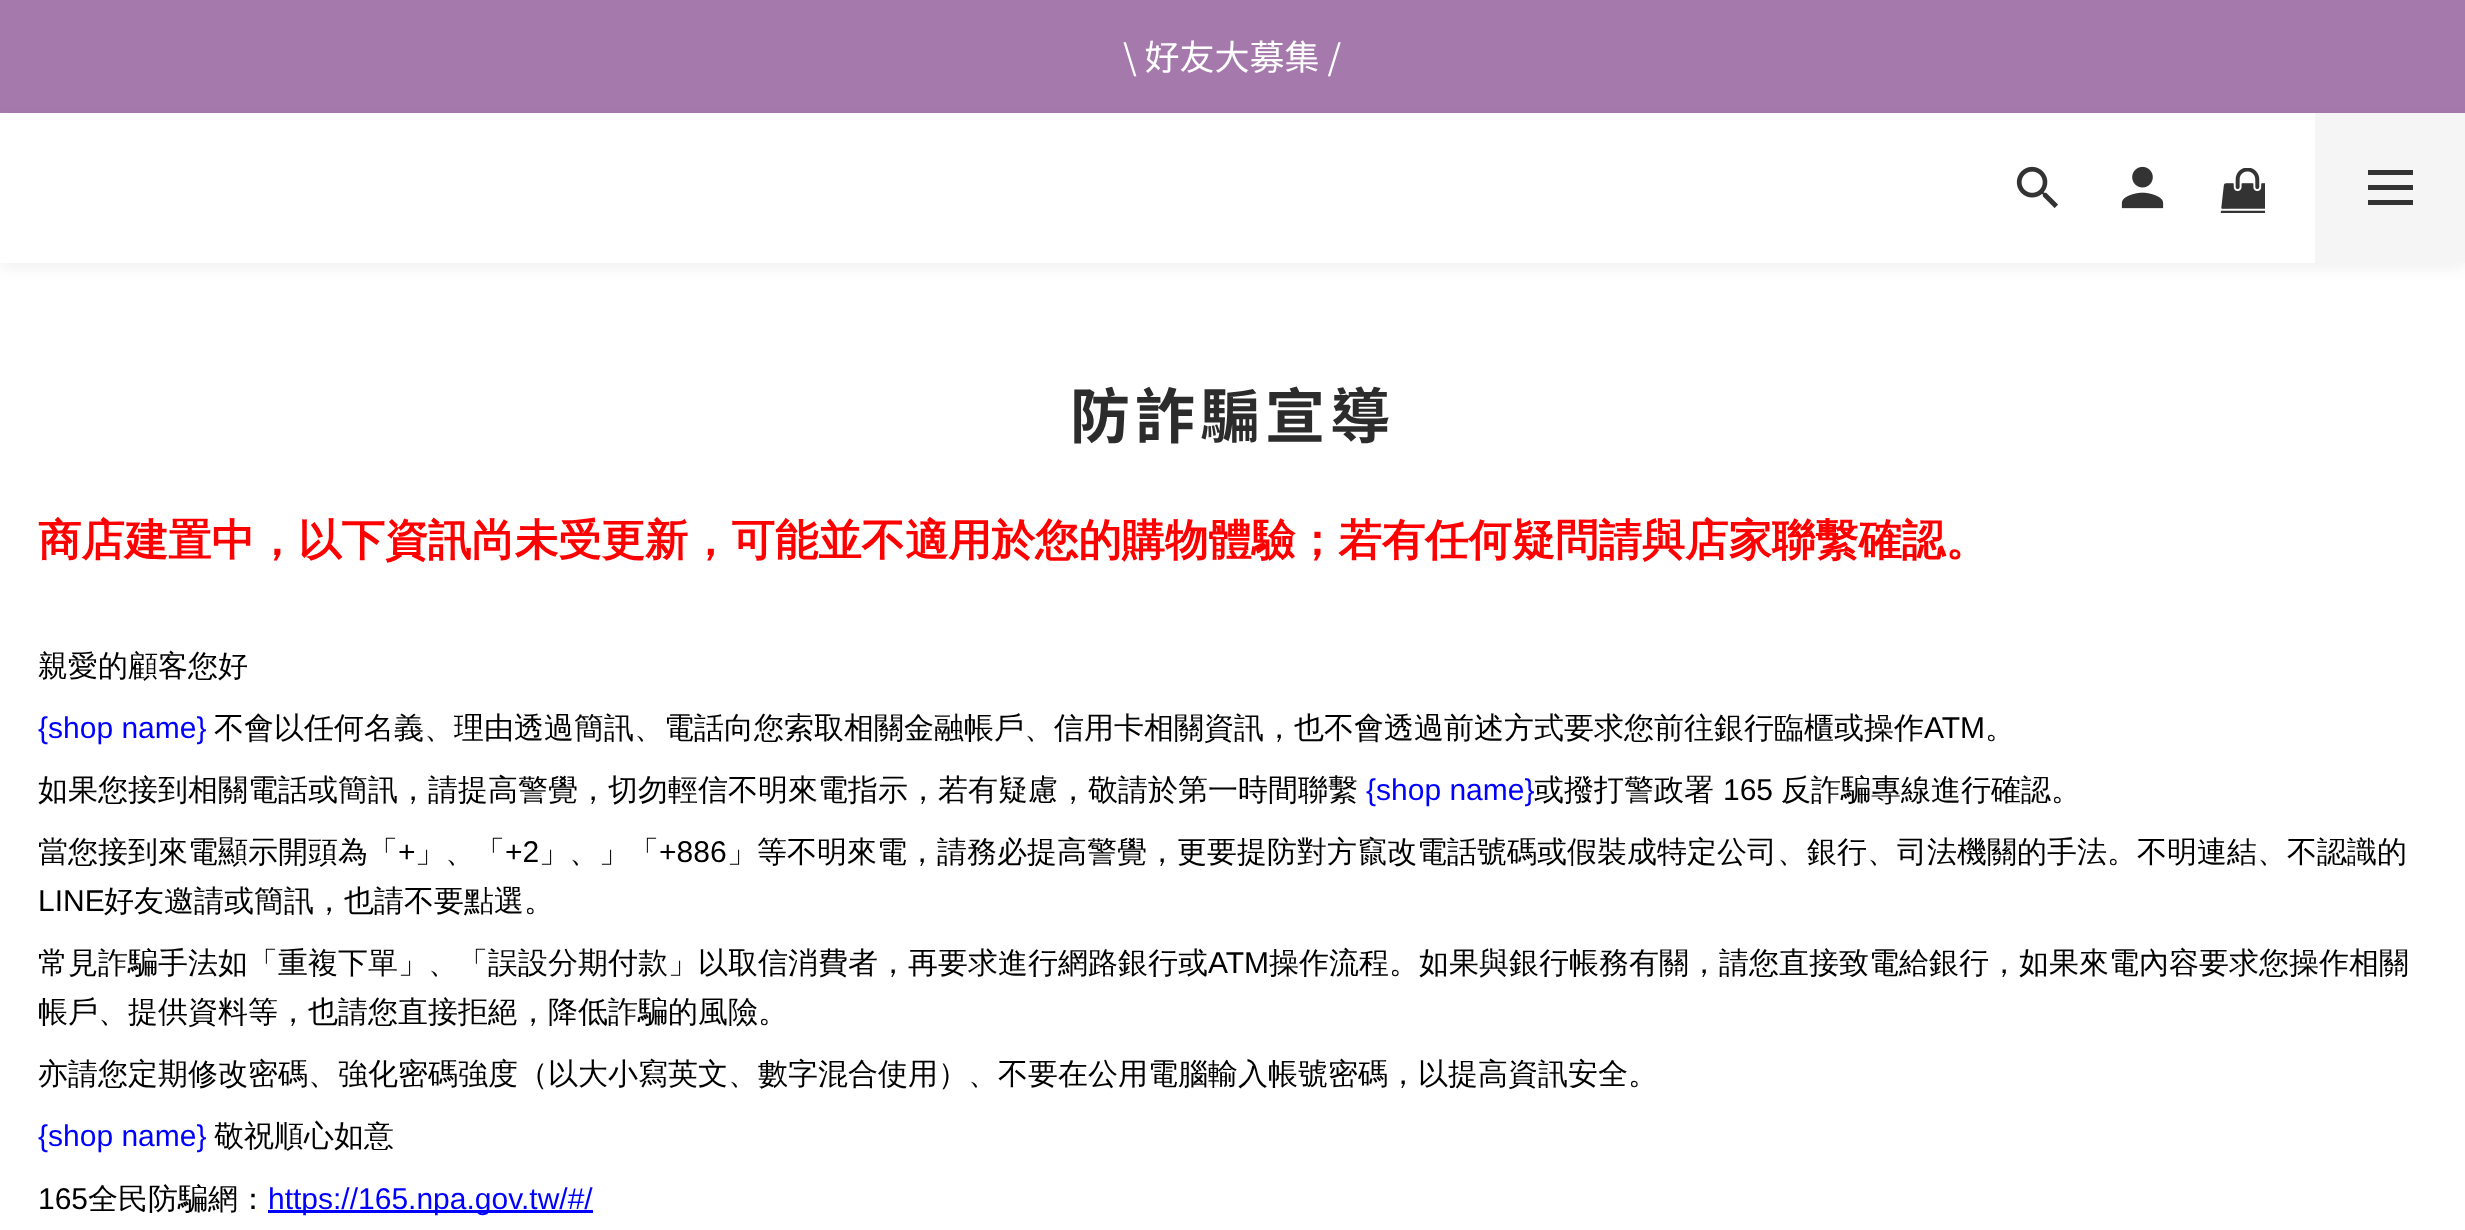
async function draw(canvas) {
	canvas.width = 2465;
	canvas.height = 1230;
	const c = canvas.getContext('2d');
	c.miterLimit = 4;
	c.fontKerning = 'normal';
	async function loadImage(src) {
		const img = new Image();
		img.src = src;
		await img.decode();
		return img;
	}

	c.fillStyle = '#fff';
	c.fillRect(0, 0, 2465, 1230);
	c.fillStyle = '#a579ac';
	c.fillRect(0, 0, 2465, 113);
	c.font = '35px Noto Sans TC';
	c.fillStyle = '#fff';
	c.fillText('\\ 好友大募集 /', 1123, 70);
	c.fillStyle = '#0000000f';
	c.filter = 'blur(7.5px)';
	c.beginPath();
	c.rect(0, 118, 2465, 150);
	c.fill();
	c.filter = 'none';
	c.fillStyle = '#fff';
	c.fillRect(0, 113, 2315, 150);
	c.drawImage(await loadImage('img1.png'), 2016, 166, 42, 42);
	c.drawImage(await loadImage('img2.png'), 2121, 166, 43, 43);
	c.drawImage(await loadImage('img3.png'), 2220, 168, 45, 45);
	for (const [x, y, w, h, color] of [
		[2315, 113, 150, 150, '#f5f5f5'],
		[2368, 185, 45, 5, '#333'],
		[2368, 170, 45, 5, '#333'],
		[2368, 200, 45, 5, '#333'],
	]) {
		c.fillStyle = color;
		c.fillRect(x, y, w, h);
	}
	c.letterSpacing = '5px';
	c.font = 'bold 60px Noto Sans TC';
	c.fillStyle = '#2c2c2c';
	c.fillText('防詐騙宣導', 1070, 438);
	c.letterSpacing = '0px';
	c.font = 'bold 43.35px WenQuanYi Zen Hei';
	c.fillStyle = '#f00';
	c.fillText('商店建置中，以下資訊尚未受更新，可能並不適用於您的購物體驗；若有任何疑問請與店家聯繫確認。', 38, 555);
	c.font = '500 30px WenQuanYi Zen Hei';
	c.fillStyle = '#000';
	c.fillText('親愛的顧客您好', 38, 676);
	c.font = '30px Liberation Sans';
	c.fillStyle = '#00f';
	c.fillText('{shop name}', 38, 738);
	c.font = '500 30px WenQuanYi Zen Hei';
	c.fillStyle = '#000';
	c.fillText('不會以任何名義、理由透過簡訊、電話向您索取相關金融帳戶、信用卡相關資訊，也不會透過前述方式要求您前往銀行臨櫃或操作', 214, 738);
	c.font = '30px Liberation Sans';
	c.fillText('ATM', 1924, 738);
	c.font = '500 30px WenQuanYi Zen Hei';
	c.fillText('。', 1985, 738);
	c.fillText('如果您接到相關電話或簡訊，請提高警覺，切勿輕信不明來電指示，若有疑慮，敬請於第一時間聯繫', 38, 800);
	c.font = '30px Liberation Sans';
	c.fillStyle = '#00f';
	c.fillText('{shop name}', 1366, 800);
	c.font = '500 30px WenQuanYi Zen Hei';
	c.fillStyle = '#000';
	c.fillText('或撥打警政署', 1534, 800);
	c.font = '30px Liberation Sans';
	c.fillText('165', 1723, 800);
	c.font = '500 30px WenQuanYi Zen Hei';
	c.fillText('反詐騙專線進行確認。', 1781, 800);
	c.fillText('當您接到來電顯示開頭為「', 38, 862);
	c.font = '30px Liberation Sans';
	c.fillText('+', 398, 862);
	c.font = '500 30px WenQuanYi Zen Hei';
	c.fillText('」、「', 415, 862);
	c.font = '30px Liberation Sans';
	c.fillText('+2', 505, 862);
	c.font = '500 30px WenQuanYi Zen Hei';
	c.fillText('」、」「', 539, 862);
	c.font = '30px Liberation Sans';
	c.fillText('+886', 659, 862);
	c.font = '500 30px WenQuanYi Zen Hei';
	c.fillText('」等不明來電，請務必提高警覺，更要提防對方竄改電話號碼或假裝成特定公司、銀行、司法機關的手法。不明連結、不認識的', 727, 862);
	c.font = '30px Liberation Sans';
	c.fillText('LINE', 38, 911);
	c.font = '500 30px WenQuanYi Zen Hei';
	c.fillText('好友邀請或簡訊，也請不要點選。', 104, 911);
	c.fillText('常見詐騙手法如「重複下單」、「誤設分期付款」以取信消費者，再要求進行網路銀行或', 38, 973);
	c.font = '30px Liberation Sans';
	c.fillText('ATM', 1208, 973);
	c.font = '500 30px WenQuanYi Zen Hei';
	for (const [text, x, y] of [
		['操作流程。如果與銀行帳務有關，請您直接致電給銀行，如果來電內容要求您操作相關', 1269, 973],
		['帳戶、提供資料等，也請您直接拒絕，降低詐騙的風險。', 38, 1022],
		['亦請您定期修改密碼、強化密碼強度（以大小寫英文、數字混合使用）、不要在公用電腦輸入帳號密碼，以提高資訊安全。', 38, 1084],
	]) {
		c.fillText(text, x, y);
	}
	c.font = '30px Liberation Sans';
	c.fillStyle = '#00f';
	c.fillText('{shop name}', 38, 1146);
	c.font = '500 30px WenQuanYi Zen Hei';
	c.fillStyle = '#000';
	c.fillText('敬祝順心如意', 214, 1146);
	c.font = '30px Liberation Sans';
	c.fillText('165', 38, 1209);
	c.font = '500 30px WenQuanYi Zen Hei';
	c.fillText('全民防騙網：', 88, 1209);
	c.fillStyle = '#00f';
	c.fillRect(268, 1210, 325, 3);
	c.font = '30px Liberation Sans';
	c.fillText('https://165.npa.gov.tw/#/', 268, 1209);
}

draw(document.querySelector('canvas'));
